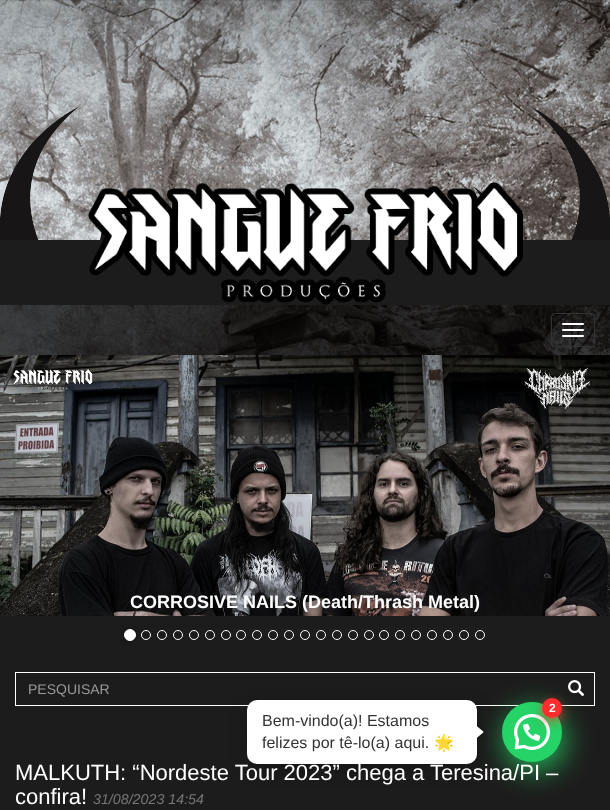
async function draw(canvas) {
	canvas.width = 610;
	canvas.height = 810;
	const c = canvas.getContext('2d');
	c.miterLimit = 4;
	c.fontKerning = 'normal';
	async function loadImage(src) {
		const img = new Image();
		img.src = src;
		await img.decode();
		return img;
	}

	c.fillStyle = '#fff';
	c.fillRect(0, 0, 610, 810);
	c.drawImage(await loadImage('img1.png'), 0, 0, 610, 355);
	c.fillStyle = '#1d1c1c';
	c.fillRect(0, 240, 610, 65);
	c.drawImage(await loadImage('img2.png'), 0, 106, 137, 134);
	c.drawImage(await loadImage('img4.png'), 473, 106, 137, 134);
	c.drawImage(await loadImage('img3.png'), 88, 182, 435, 123);
	c.fillStyle = '#000000bf';
	c.fillRect(0, 305, 610, 50);
	c.beginPath();
	c.roundRect(551.5, 313.5, 43, 33, 3.5);
	c.strokeStyle = '#333';
	c.stroke();
	c.fillStyle = '#fff';
	c.beginPath();
	c.roundRect(562, 323, 22, 2, 1);
	c.fill();
	c.beginPath();
	c.roundRect(562, 329, 22, 2, 1);
	c.fill();
	c.beginPath();
	c.roundRect(562, 335, 22, 2, 1);
	c.fill();
	c.fillStyle = '#1d1c1c';
	c.fillRect(0, 615, 610, 195);
	c.drawImage(await loadImage('img5.png'), 0, 355, 610, 261);
	c.font = 'bold 18px Liberation Sans';
	c.fillStyle = '#fff';
	c.fillText('CORROSIVE NAILS (Death/Thrash Metal)', 130, 608);
	c.fillStyle = '#00000080';
	c.filter = 'blur(2.5px)';
	c.beginPath();
	c.roundRect(124, 629, 12, 12, 6);
	c.fill();
	c.filter = 'none';
	c.fillStyle = '#fff';
	c.beginPath();
	c.arc(130, 635, 5.5, 0, 2 * Math.PI);
	c.fill();
	c.strokeStyle = '#fff';
	c.stroke();
	c.beginPath();
	c.arc(146, 635, 4.5, 0, 2 * Math.PI);
	c.stroke();
	c.beginPath();
	c.arc(162, 635, 4.5, 0, 2 * Math.PI);
	c.stroke();
	c.beginPath();
	c.arc(178, 635, 4.5, 0, 2 * Math.PI);
	c.stroke();
	c.beginPath();
	c.arc(194, 635, 4.5, 0, 2 * Math.PI);
	c.stroke();
	c.beginPath();
	c.arc(210, 635, 4.5, 0, 2 * Math.PI);
	c.stroke();
	c.beginPath();
	c.arc(226, 635, 4.5, 0, 2 * Math.PI);
	c.stroke();
	c.beginPath();
	c.arc(241, 635, 4.5, 0, 2 * Math.PI);
	c.stroke();
	c.beginPath();
	c.arc(257, 635, 4.5, 0, 2 * Math.PI);
	c.stroke();
	c.beginPath();
	c.arc(273, 635, 4.5, 0, 2 * Math.PI);
	c.stroke();
	c.beginPath();
	c.arc(289, 635, 4.5, 0, 2 * Math.PI);
	c.stroke();
	c.beginPath();
	c.arc(305, 635, 4.5, 0, 2 * Math.PI);
	c.stroke();
	c.beginPath();
	c.arc(321, 635, 4.5, 0, 2 * Math.PI);
	c.stroke();
	c.beginPath();
	c.arc(337, 635, 4.5, 0, 2 * Math.PI);
	c.stroke();
	c.beginPath();
	c.arc(353, 635, 4.5, 0, 2 * Math.PI);
	c.stroke();
	c.beginPath();
	c.arc(369, 635, 4.5, 0, 2 * Math.PI);
	c.stroke();
	c.beginPath();
	c.arc(384, 635, 4.5, 0, 2 * Math.PI);
	c.stroke();
	c.beginPath();
	c.arc(400, 635, 4.5, 0, 2 * Math.PI);
	c.stroke();
	c.beginPath();
	c.arc(416, 635, 4.5, 0, 2 * Math.PI);
	c.stroke();
	c.beginPath();
	c.arc(432, 635, 4.5, 0, 2 * Math.PI);
	c.stroke();
	c.beginPath();
	c.arc(448, 635, 4.5, 0, 2 * Math.PI);
	c.stroke();
	c.beginPath();
	c.arc(464, 635, 4.5, 0, 2 * Math.PI);
	c.stroke();
	c.beginPath();
	c.arc(480, 635, 4.5, 0, 2 * Math.PI);
	c.stroke();
	c.strokeRect(15.5, 672.5, 579, 33);
	c.font = '14px Liberation Sans';
	c.fillStyle = '#999';
	c.fillText('PESQUISAR', 28, 694);
	c.drawImage(await loadImage('img6.png'), 568, 680, 16, 16);
	c.fillStyle = '#25d366de';
	c.filter = 'blur(15px)';
	c.beginPath();
	c.roundRect(505, 710, 60, 60, 30);
	c.fill();
	c.filter = 'none';
	c.fillStyle = '#25d366';
	c.beginPath();
	c.arc(532, 732, 30, 0, 2 * Math.PI);
	c.fill();
	c.drawImage(await loadImage('img7.png'), 514, 714, 36, 36);
	c.fillStyle = '#ff2d2db8';
	c.filter = 'blur(6px)';
	c.beginPath();
	c.roundRect(542, 702, 20, 20, 10);
	c.fill();
	c.filter = 'none';
	c.fillStyle = '#ff2d2d';
	c.beginPath();
	c.arc(552, 708, 10, 0, 2 * Math.PI);
	c.fill();
	c.font = 'bold 12px Liberation Sans';
	c.fillStyle = '#fff';
	c.fillText('2', 549, 712);
	c.fillStyle = '#0000004d';
	c.filter = 'blur(10px)';
	c.beginPath();
	c.roundRect(250, 708, 224, 58, 7);
	c.fill();
	c.filter = 'none';
	c.fillStyle = '#fff';
	c.beginPath();
	c.roundRect(247, 700, 230, 64, 10);
	c.fill();
	c.font = '16px Liberation Sans';
	c.fillStyle = '#333';
	c.fillText('Bem-vindo(a)! Estamos', 262, 726);
	c.fillText('felizes por tê-lo(a) aqui.', 262, 748);
	c.font = '16px Noto Color Emoji';
	c.fillText('🌟', 434, 748);
	c.drawImage(await loadImage('img8.png'), 476, 723, 8, 18);
	c.font = '22px Liberation Sans';
	c.fillStyle = '#fff';
	c.fillText('MALKUTH: “Nordeste Tour 2023” chega a Teresina/PI –', 15, 780);
	c.fillText('confira!', 15, 804);
	c.font = 'italic 14.25px Liberation Sans';
	c.fillStyle = '#777';
	c.fillText('31/08/2023 14:54', 93, 804);
}

draw(document.querySelector('canvas'));
